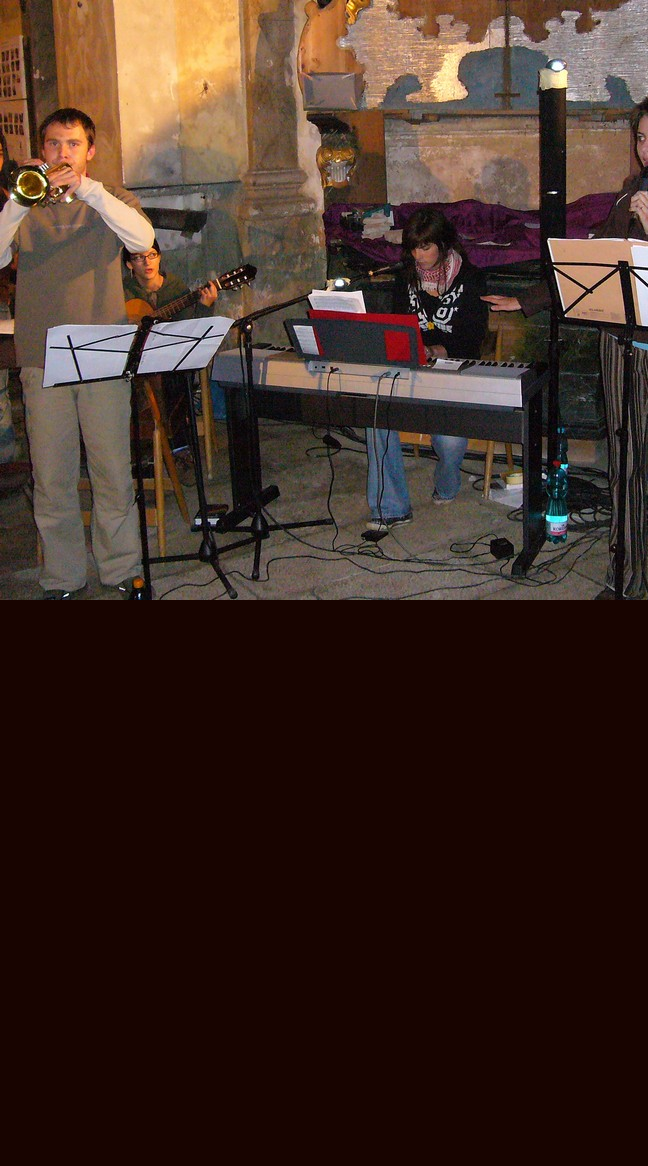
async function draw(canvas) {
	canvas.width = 648;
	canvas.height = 1166;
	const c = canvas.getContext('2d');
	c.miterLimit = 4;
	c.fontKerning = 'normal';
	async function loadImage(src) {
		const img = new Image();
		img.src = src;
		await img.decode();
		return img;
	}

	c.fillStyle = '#180400';
	c.fillRect(0, 0, 648, 1166);
	c.drawImage(await loadImage('img1.png'), 0, 0, 648, 600);
}

draw(document.querySelector('canvas'));
